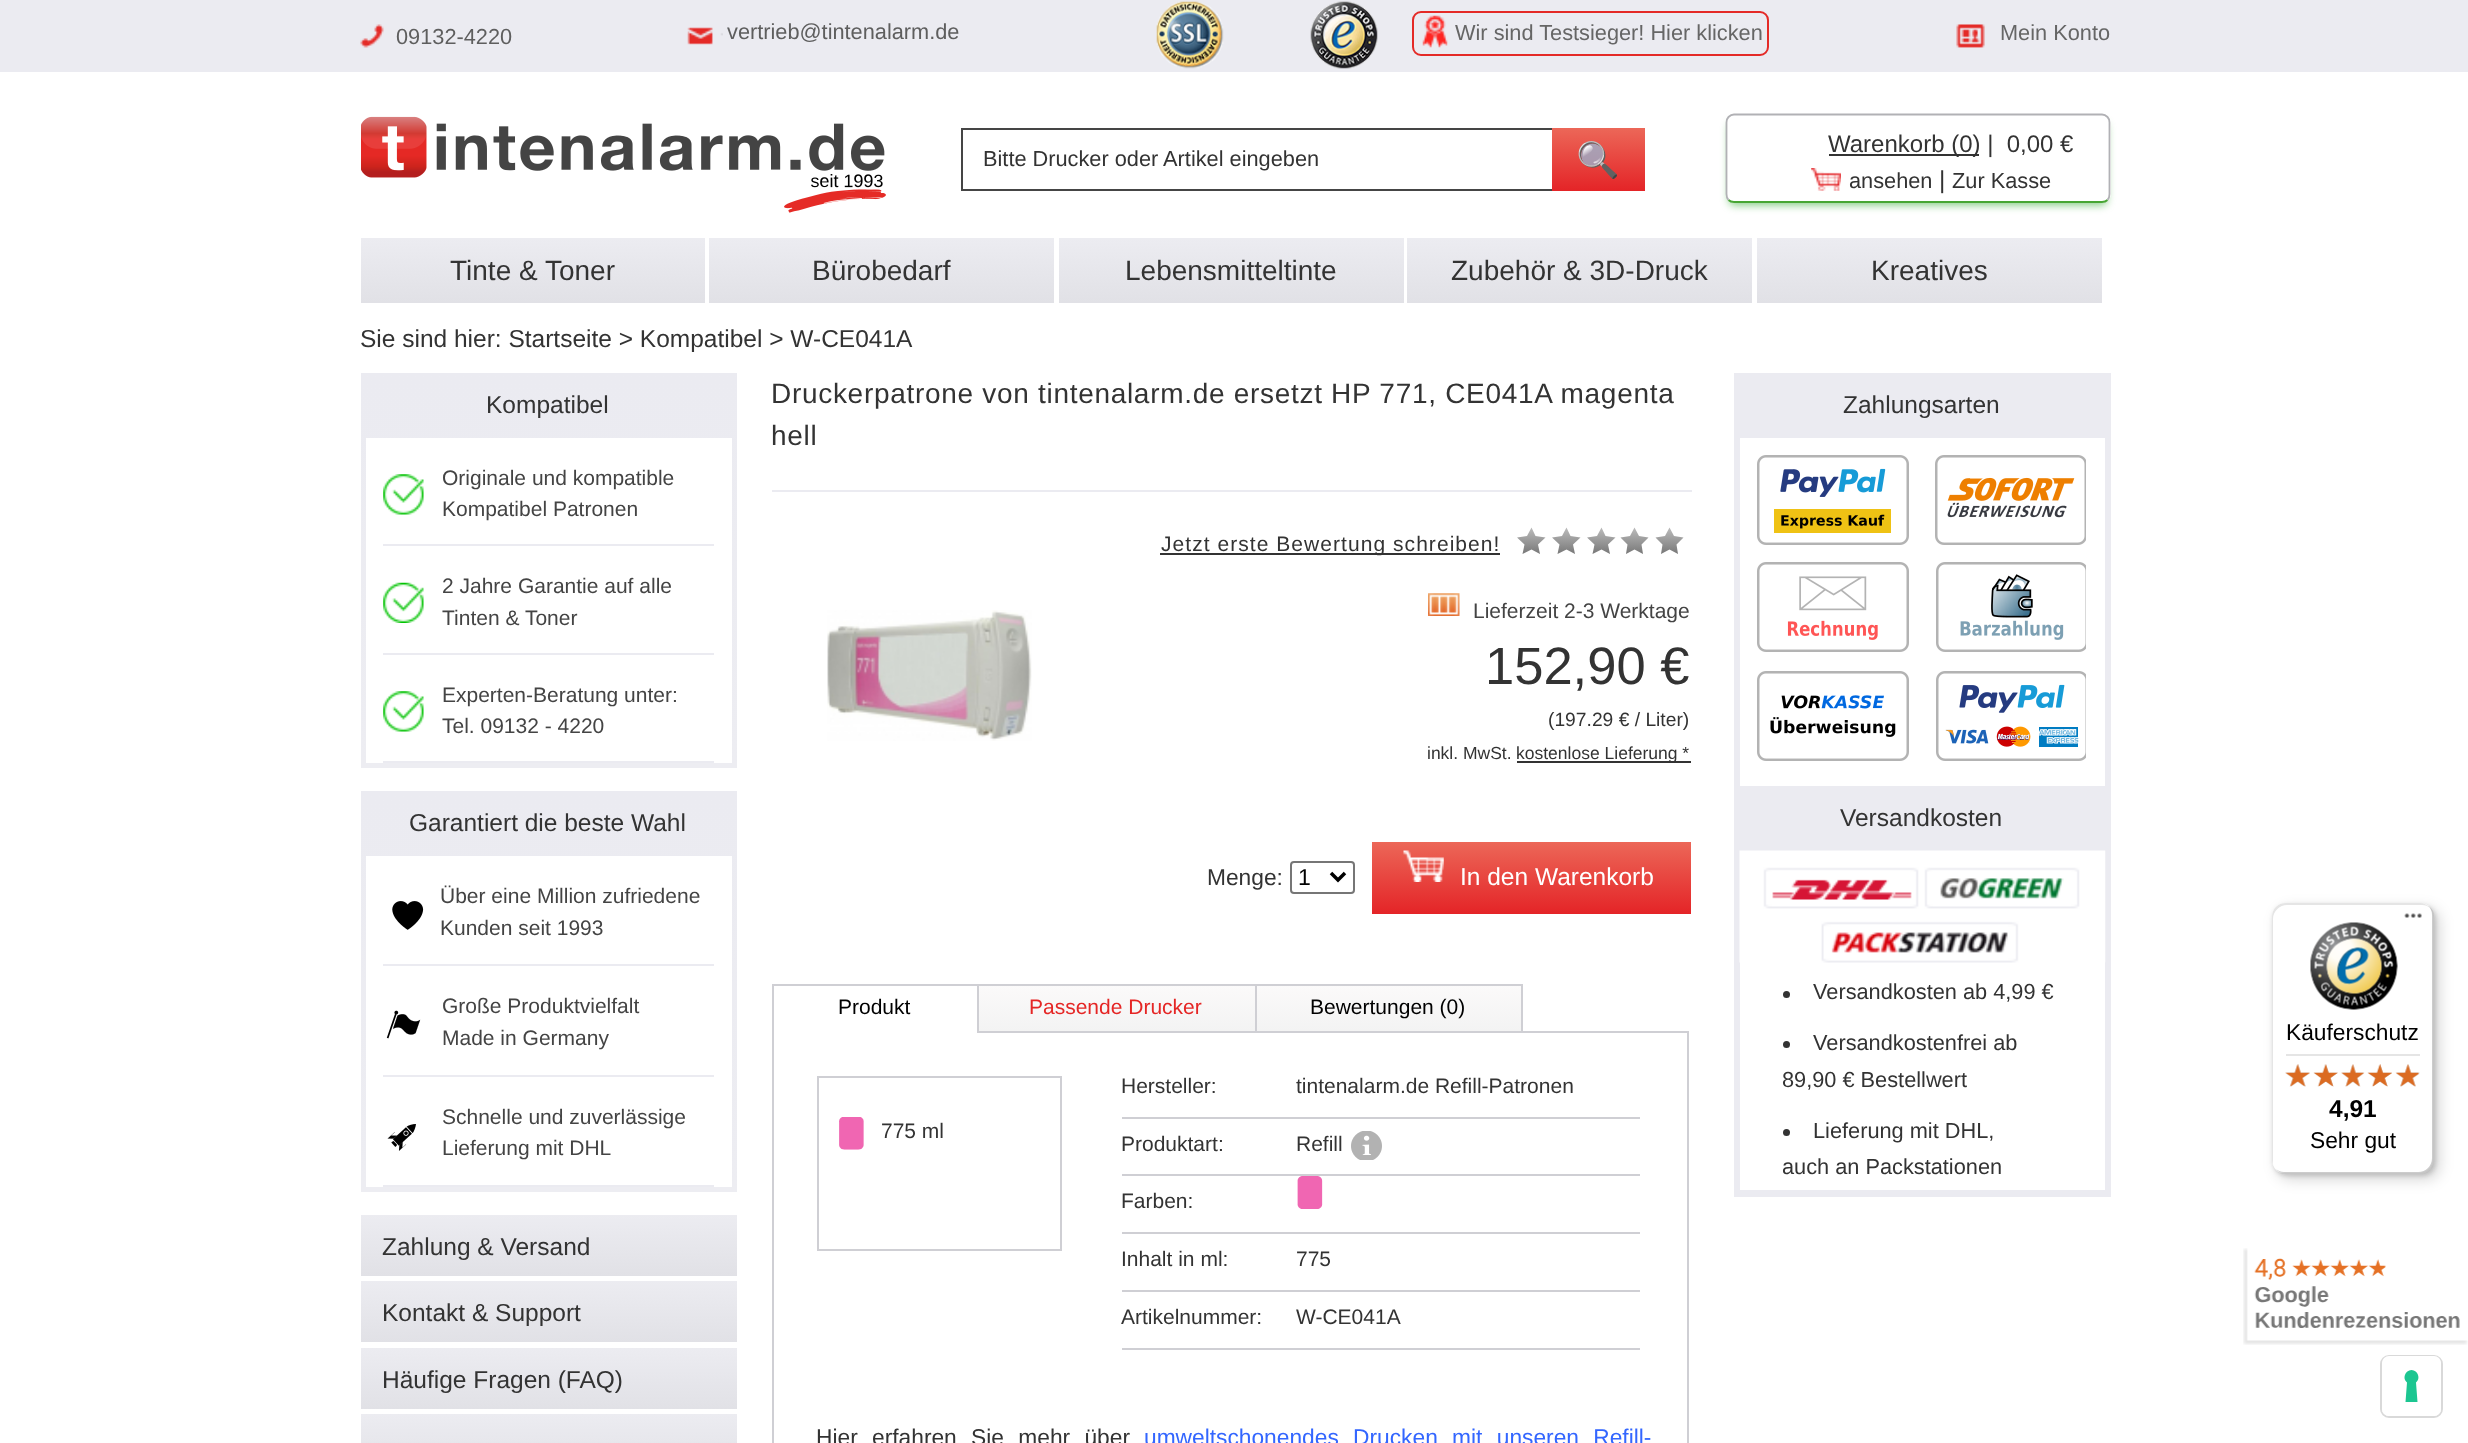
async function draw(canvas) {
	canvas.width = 2468;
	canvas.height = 1443;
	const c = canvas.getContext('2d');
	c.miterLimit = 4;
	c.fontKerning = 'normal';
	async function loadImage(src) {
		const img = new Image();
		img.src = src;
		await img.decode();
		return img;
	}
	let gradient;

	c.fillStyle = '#fff';
	c.fillRect(0, 0, 2468, 1443);
	c.fillStyle = '#ebebf1';
	c.fillRect(0, 0, 2468, 72);
	c.drawImage(await loadImage('img1.png'), 360, 24, 24, 24);
	c.font = '21.75px Liberation Sans';
	c.fillStyle = '#5e5e5e';
	c.fillText('09132-4220', 396, 44);
	c.drawImage(await loadImage('img2.png'), 687, 27, 36, 18);
	c.fillText('vertrieb@tintenalarm.de', 727, 39);
	c.drawImage(await loadImage('img3.png'), 1156, 1, 68, 68);
	c.drawImage(await loadImage('img4.png'), 1310, 1, 68, 68);
	c.beginPath();
	c.roundRect(1413, 12, 355, 43, 8);
	c.strokeStyle = '#e42a27';
	c.lineWidth = 2;
	c.stroke();
	c.drawImage(await loadImage('img5.png'), 1422, 15, 26, 33);
	c.fillStyle = '#666';
	c.fillText('Wir sind Testsieger! Hier klicken', 1455, 40);
	c.drawImage(await loadImage('img6.png'), 1956, 24, 29, 24);
	c.fillText('Mein Konto', 2000, 40);
	c.drawImage(await loadImage('img7.png'), 361, 116, 525, 97);
	c.strokeStyle = '#454545';
	c.strokeRect(962, 129, 596, 61);
	c.fillStyle = '#333';
	c.fillText('Bitte Drucker oder Artikel eingeben', 983, 166);
	gradient = c.createLinearGradient(1599, 128, 1599, 191);
	gradient.addColorStop(0, '#ec6758');
	gradient.addColorStop(1, '#e42427');
	c.fillStyle = gradient;
	c.fillRect(1552, 128, 93, 63);
	c.font = 'bold 35px Noto Color Emoji';
	c.fillStyle = '#fff';
	c.fillText('🔍', 1576, 172);
	c.save();
	c.beginPath();
	c.moveTo(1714, 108);
	c.lineTo(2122, 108);
	c.lineTo(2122, 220);
	c.lineTo(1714, 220);
	c.closePath();
	c.moveTo(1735, 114);
	c.lineTo(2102, 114);
	c.bezierCurveTo(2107, 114, 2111, 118, 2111, 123);
	c.lineTo(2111, 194);
	c.bezierCurveTo(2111, 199, 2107, 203, 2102, 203);
	c.lineTo(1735, 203);
	c.bezierCurveTo(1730, 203, 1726, 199, 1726, 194);
	c.lineTo(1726, 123);
	c.bezierCurveTo(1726, 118, 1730, 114, 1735, 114);
	c.closePath();
	c.clip('evenodd');
	c.fillStyle = '#00960080';
	c.filter = 'blur(4.5px)';
	c.beginPath();
	c.roundRect(1729, 123, 378, 82, 5);
	c.fill();
	c.filter = 'none';
	c.restore();
	c.beginPath();
	c.moveTo(2107.5, 200);
	c.bezierCurveTo(2106, 201.5, 2104, 202, 2102, 202);
	c.lineTo(1734, 202);
	c.bezierCurveTo(1732, 202, 1730, 201.5, 1728.5, 200);
	c.strokeStyle = '#47a634';
	c.lineWidth = 1.8;
	c.stroke();
	c.beginPath();
	c.moveTo(1728.5, 200);
	c.bezierCurveTo(1727, 198.5, 1726.5, 196.5, 1726.5, 194);
	c.lineTo(1726.5, 122.5);
	c.bezierCurveTo(1726.5, 120.5, 1727, 118.5, 1728.5, 117);
	c.bezierCurveTo(1730, 115.5, 1732, 114.5, 1734, 114.5);
	c.lineTo(2102, 114.5);
	c.bezierCurveTo(2104, 114.5, 2106, 115.5, 2107.5, 117);
	c.bezierCurveTo(2109, 118.5, 2109.5, 120.5, 2109.5, 122.5);
	c.lineTo(2109.5, 194);
	c.bezierCurveTo(2109.5, 196.5, 2109, 198.5, 2107.5, 200);
	c.strokeStyle = '#b1b1b5';
	c.stroke();
	c.fillStyle = '#333';
	c.fillRect(1829, 154, 150, 2);
	c.font = '24px Liberation Sans';
	c.fillText('Warenkorb (0) |  0,00 €', 1828, 152);
	c.drawImage(await loadImage('img8.png'), 1811, 168, 30, 23);
	c.font = '21.75px Liberation Sans';
	c.fillText('ansehen', 1849, 188);
	c.font = '24.5px Liberation Sans';
	c.fillText('|', 1939, 188);
	c.font = '21.75px Liberation Sans';
	c.fillText('Zur Kasse', 1952, 188);
	gradient = c.createLinearGradient(533, 238, 533, 303);
	gradient.addColorStop(0, '#ececf1');
	gradient.addColorStop(1, '#e1e1e6');
	c.fillStyle = gradient;
	c.fillRect(361, 238, 344, 65);
	c.font = '28px Liberation Sans';
	c.fillStyle = '#333';
	c.fillText('Tinte & Toner', 450, 280);
	gradient = c.createLinearGradient(881, 238, 881, 303);
	gradient.addColorStop(0, '#ececf1');
	gradient.addColorStop(1, '#e1e1e6');
	c.fillStyle = gradient;
	c.fillRect(709, 238, 345, 65);
	c.fillStyle = '#333';
	c.fillText('Bürobedarf', 812, 280);
	gradient = c.createLinearGradient(1231, 238, 1231, 303);
	gradient.addColorStop(0, '#ececf1');
	gradient.addColorStop(1, '#e1e1e6');
	c.fillStyle = gradient;
	c.fillRect(1059, 238, 345, 65);
	c.fillStyle = '#333';
	c.fillText('Lebensmitteltinte', 1125, 280);
	gradient = c.createLinearGradient(1579, 238, 1579, 303);
	gradient.addColorStop(0, '#ececf1');
	gradient.addColorStop(1, '#e1e1e6');
	c.fillStyle = gradient;
	c.fillRect(1407, 238, 345, 65);
	c.fillStyle = '#333';
	c.fillText('Zubehör & 3D-Druck', 1451, 280);
	gradient = c.createLinearGradient(1929, 238, 1929, 303);
	gradient.addColorStop(0, '#ececf1');
	gradient.addColorStop(1, '#e1e1e6');
	c.fillStyle = gradient;
	c.fillRect(1757, 238, 345, 65);
	c.fillStyle = '#333';
	c.fillText('Kreatives', 1871, 280);
	c.font = '24.5px Liberation Sans';
	c.fillText('Sie sind hier: Startseite > Kompatibel > W-CE041A', 360, 347);
	gradient = c.createLinearGradient(549, 373, 549, 768);
	gradient.addColorStop(0, '#ebebf1');
	gradient.addColorStop(1, '#ededf2');
	c.fillStyle = gradient;
	c.fillRect(361, 373, 376, 395);
	c.fillStyle = '#333';
	c.fillText('Kompatibel', 486, 413);
	c.fillStyle = '#fff';
	c.fillRect(366, 438, 366, 325);
	c.fillStyle = '#ebebf1';
	c.fillRect(383, 544, 331, 2);
	c.drawImage(await loadImage('img9.png'), 383, 474, 41, 41);
	c.font = '21px Liberation Sans';
	c.fillStyle = '#444';
	c.fillText('Originale und kompatible', 442, 485);
	c.fillText('Kompatibel Patronen', 442, 516);
	c.fillStyle = '#ebebf1';
	c.fillRect(383, 653, 331, 2);
	c.drawImage(await loadImage('img10.png'), 383, 582, 41, 41);
	c.fillStyle = '#444';
	c.fillText('2 Jahre Garantie auf alle', 442, 593);
	c.fillText('Tinten & Toner', 442, 625);
	c.fillStyle = '#ebebf1';
	c.fillRect(383, 761, 331, 2);
	c.drawImage(await loadImage('img9.png'), 383, 691, 41, 41);
	c.fillStyle = '#444';
	c.fillText('Experten-Beratung unter:', 442, 702);
	c.fillText('Tel. 09132 - 4220', 442, 733);
	gradient = c.createLinearGradient(549, 791, 549, 1192);
	gradient.addColorStop(0, '#ebebf1');
	gradient.addColorStop(1, '#ededf2');
	c.fillStyle = gradient;
	c.fillRect(361, 791, 376, 401);
	c.font = '24.5px Liberation Sans';
	c.fillStyle = '#333';
	c.fillText('Garantiert die beste Wahl', 409, 831);
	c.fillStyle = '#fff';
	c.fillRect(366, 856, 366, 331);
	c.fillStyle = '#ebebf1';
	c.fillRect(383, 964, 331, 2);
	c.drawImage(await loadImage('img11.png'), 392, 901, 32, 29);
	c.font = '21px Liberation Sans';
	c.fillStyle = '#444';
	c.fillText('Über eine Million zufriedene', 440, 903);
	c.fillText('Kunden seit 1993', 440, 935);
	c.fillStyle = '#ebebf1';
	c.fillRect(383, 1075, 331, 2);
	c.drawImage(await loadImage('img12.png'), 386, 1010, 35, 29);
	c.fillStyle = '#444';
	c.fillText('Große Produktvielfalt', 442, 1013);
	c.fillText('Made in Germany', 442, 1045);
	c.fillStyle = '#ebebf1';
	c.fillRect(383, 1185, 331, 2);
	c.drawImage(await loadImage('img13.png'), 387, 1124, 29, 27);
	c.fillStyle = '#444';
	c.fillText('Schnelle und zuverlässige', 442, 1124);
	c.fillText('Lieferung mit DHL', 442, 1155);
	gradient = c.createLinearGradient(549, 1215, 549, 1276);
	gradient.addColorStop(0, '#ececf1');
	gradient.addColorStop(1, '#e1e1e6');
	c.fillStyle = gradient;
	c.fillRect(361, 1215, 376, 61);
	c.font = '24.5px Liberation Sans';
	c.fillStyle = '#333';
	c.fillText('Zahlung & Versand', 382, 1255);
	gradient = c.createLinearGradient(549, 1281, 549, 1342);
	gradient.addColorStop(0, '#ececf1');
	gradient.addColorStop(1, '#e1e1e6');
	c.fillStyle = gradient;
	c.fillRect(361, 1281, 376, 61);
	c.fillStyle = '#333';
	c.fillText('Kontakt & Support', 382, 1321);
	gradient = c.createLinearGradient(549, 1348, 549, 1409);
	gradient.addColorStop(0, '#ececf1');
	gradient.addColorStop(1, '#e1e1e6');
	c.fillStyle = gradient;
	c.fillRect(361, 1348, 376, 61);
	c.fillStyle = '#333';
	c.fillText('Häufige Fragen (FAQ)', 382, 1388);
	gradient = c.createLinearGradient(549, 1414, 549, 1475);
	gradient.addColorStop(0, '#ececf1');
	gradient.addColorStop(1, '#e1e1e6');
	c.fillStyle = gradient;
	c.fillRect(361, 1414, 376, 29);
	c.letterSpacing = '0.7px';
	c.font = '28px Liberation Sans';
	c.fillStyle = '#333';
	c.fillText('Druckerpatrone von tintenalarm.de ersetzt HP 771, CE041A magenta', 771, 403);
	c.fillText('hell', 771, 445);
	c.fillStyle = '#ebebf1';
	c.fillRect(772, 490, 920, 2);
	c.drawImage(await loadImage('img14.png'), 827, 610, 205, 131);
	c.fillStyle = '#333';
	c.fillRect(1160, 553, 340, 2);
	c.letterSpacing = '1.05px';
	c.font = '21px Liberation Sans';
	c.fillText('Jetzt erste Bewertung schreiben!', 1161, 551);
	gradient = c.createLinearGradient(1531, 527, 1531, 554);
	gradient.addColorStop(0, '#bdbdbd');
	gradient.addColorStop(1, '#787878');
	c.fillStyle = gradient;
	c.beginPath();
	c.moveTo(1531.5, 527.5);
	c.lineTo(1535.5, 536);
	c.lineTo(1545.5, 537.5);
	c.lineTo(1538, 544.5);
	c.lineTo(1540, 554);
	c.lineTo(1531.5, 549.5);
	c.lineTo(1522.5, 554);
	c.lineTo(1524.5, 544.5);
	c.lineTo(1517, 537.5);
	c.lineTo(1527, 536);
	c.closePath();
	c.fill();
	gradient = c.createLinearGradient(1566, 527, 1566, 554);
	gradient.addColorStop(0, '#bdbdbd');
	gradient.addColorStop(1, '#787878');
	c.fillStyle = gradient;
	c.beginPath();
	c.moveTo(1566.5, 527.5);
	c.lineTo(1570.5, 536);
	c.lineTo(1580.5, 537.5);
	c.lineTo(1573, 544.5);
	c.lineTo(1575, 554);
	c.lineTo(1566.5, 549.5);
	c.lineTo(1557.5, 554);
	c.lineTo(1559.5, 544.5);
	c.lineTo(1552, 537.5);
	c.lineTo(1562, 536);
	c.closePath();
	c.fill();
	gradient = c.createLinearGradient(1601, 527, 1601, 554);
	gradient.addColorStop(0, '#bdbdbd');
	gradient.addColorStop(1, '#787878');
	c.fillStyle = gradient;
	c.beginPath();
	c.moveTo(1601.5, 527.5);
	c.lineTo(1605.5, 536);
	c.lineTo(1615.5, 537.5);
	c.lineTo(1608, 544.5);
	c.lineTo(1610, 554);
	c.lineTo(1601.5, 549.5);
	c.lineTo(1592.5, 554);
	c.lineTo(1594.5, 544.5);
	c.lineTo(1587, 537.5);
	c.lineTo(1597, 536);
	c.closePath();
	c.fill();
	gradient = c.createLinearGradient(1634, 527, 1634, 554);
	gradient.addColorStop(0, '#bdbdbd');
	gradient.addColorStop(1, '#787878');
	c.fillStyle = gradient;
	c.beginPath();
	c.moveTo(1634.5, 527.5);
	c.lineTo(1639, 536);
	c.lineTo(1648.5, 537.5);
	c.lineTo(1641.5, 544.5);
	c.lineTo(1643, 554);
	c.lineTo(1634.5, 549.5);
	c.lineTo(1626, 554);
	c.lineTo(1627.5, 544.5);
	c.lineTo(1620.5, 537.5);
	c.lineTo(1630, 536);
	c.closePath();
	c.fill();
	gradient = c.createLinearGradient(1669, 527, 1669, 554);
	gradient.addColorStop(0, '#bdbdbd');
	gradient.addColorStop(1, '#787878');
	c.fillStyle = gradient;
	c.beginPath();
	c.moveTo(1669.5, 527.5);
	c.lineTo(1674, 536);
	c.lineTo(1683.5, 537.5);
	c.lineTo(1676.5, 544.5);
	c.lineTo(1678, 554);
	c.lineTo(1669.5, 549.5);
	c.lineTo(1661, 554);
	c.lineTo(1662.5, 544.5);
	c.lineTo(1655.5, 537.5);
	c.lineTo(1665, 536);
	c.closePath();
	c.fill();
	c.drawImage(await loadImage('img15.png'), 1428, 593, 32, 23);
	c.letterSpacing = '0px';
	c.fillStyle = '#444';
	c.fillText('Lieferzeit 2-3 Werktage', 1473, 618);
	c.font = '52.5px Liberation Sans';
	c.fillStyle = '#333';
	c.fillText('152,90 €', 1485, 684);
	c.font = '19.25px Liberation Sans';
	c.fillText('(197.29 € / Liter)', 1548, 726);
	c.font = '17.5px Liberation Sans';
	c.fillText('inkl. MwSt.', 1427, 759);
	c.fillRect(1517, 761, 174, 2);
	c.fillText('kostenlose Lieferung *', 1516, 759);
	c.font = '22.75px Liberation Sans';
	c.fillText('Menge:', 1207, 885);
	c.beginPath();
	c.roundRect(1291, 862, 63, 31, 3);
	c.strokeStyle = '#767676';
	c.lineWidth = 2;
	c.stroke();
	c.beginPath();
	c.moveTo(1331, 873);
	c.lineTo(1338, 880);
	c.lineTo(1345, 873);
	c.strokeStyle = '#000';
	c.lineWidth = 3.5;
	c.stroke();
	c.font = '23px Liberation Sans';
	c.fillStyle = '#000';
	c.fillText('1', 1298, 885);
	gradient = c.createLinearGradient(1531, 842, 1531, 914);
	gradient.addColorStop(0, '#ec6758');
	gradient.addColorStop(1, '#e42427');
	c.fillStyle = gradient;
	c.fillRect(1372, 842, 319, 72);
	c.drawImage(await loadImage('img16.png'), 1403, 850, 41, 32);
	c.font = '24.5px Liberation Sans';
	c.fillStyle = '#fff';
	c.fillText('In den Warenkorb', 1460, 885);
	c.fillStyle = '#cfcfd4';
	c.fillRect(772, 984, 206, 2);
	c.strokeStyle = '#cfcfd4';
	c.lineWidth = 2;
	c.strokeRect(773, 1032, 915, 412);
	c.fillStyle = '#fff';
	c.fillRect(772, 1031, 206, 2);
	c.fillStyle = '#cfcfd4';
	c.fillRect(772, 984, 2, 49);
	c.font = '21px Liberation Sans';
	c.fillStyle = '#000';
	c.fillText('Produkt', 838, 1014);
	gradient = c.createLinearGradient(1117, 985, 1117, 1031);
	gradient.addColorStop(0, '#fbfafa');
	gradient.addColorStop(1, '#f3f3f3');
	c.fillStyle = gradient;
	c.fillRect(979, 986, 276, 45);
	c.strokeRect(978, 985, 278, 47);
	c.fillStyle = '#e52625';
	c.fillText('Passende Drucker', 1029, 1014);
	gradient = c.createLinearGradient(1389, 985, 1389, 1031);
	gradient.addColorStop(0, '#fbfafa');
	gradient.addColorStop(1, '#f3f3f3');
	c.fillStyle = gradient;
	c.fillRect(1257, 986, 264, 45);
	c.strokeRect(1256, 985, 266, 47);
	c.fillStyle = '#000';
	c.fillText('Bewertungen (0)', 1310, 1014);
	c.strokeRect(818, 1077, 243, 173);
	c.drawImage(await loadImage('img17.png'), 839, 1117, 25, 33);
	c.fillStyle = '#333';
	c.fillText('775 ml', 881, 1138);
	c.fillStyle = '#cfcfd4';
	c.fillRect(1122, 1117, 518, 2);
	c.fillStyle = '#333';
	c.fillText('Hersteller:', 1121, 1093);
	c.fillText('tintenalarm.de Refill-Patronen', 1296, 1093);
	c.fillStyle = '#cfcfd4';
	c.fillRect(1122, 1174, 518, 2);
	c.fillStyle = '#333';
	c.fillText('Produktart:', 1121, 1151);
	c.fillText('Refill', 1296, 1151);
	c.drawImage(await loadImage('img18.png'), 1351, 1131, 31, 29);
	c.fillStyle = '#cfcfd4';
	c.fillRect(1122, 1232, 518, 2);
	c.fillStyle = '#333';
	c.fillText('Farben:', 1121, 1208);
	c.drawImage(await loadImage('img19.png'), 1297, 1176, 26, 33);
	c.fillStyle = '#cfcfd4';
	c.fillRect(1122, 1290, 518, 2);
	c.fillStyle = '#333';
	c.fillText('Inhalt in ml:', 1121, 1266);
	c.fillText('775', 1296, 1266);
	c.fillStyle = '#cfcfd4';
	c.fillRect(1122, 1348, 518, 2);
	c.fillStyle = '#333';
	c.fillText('Artikelnummer:', 1121, 1324);
	c.fillText('W-CE041A', 1296, 1324);
	c.wordSpacing = '8px';
	c.font = '22.75px Liberation Sans';
	c.fillText('Hier erfahren Sie mehr über', 816, 1445);
	c.fillStyle = '#36f';
	c.fillText('umweltschonendes Drucken mit unseren Refill-', 1144, 1445);
	c.fillStyle = '#ebebf1';
	c.fillRect(1734, 373, 377, 824);
	c.wordSpacing = '0px';
	c.font = '24.5px Liberation Sans';
	c.fillStyle = '#333';
	c.fillText('Zahlungsarten', 1843, 413);
	c.fillStyle = '#fff';
	c.fillRect(1740, 438, 365, 348);
	c.drawImage(await loadImage('img20.png'), 1757, 455, 329, 306);
	c.fillStyle = '#333';
	c.fillText('Versandkosten', 1840, 826);
	c.fillStyle = '#fff';
	c.fillRect(1740, 962, 365, 228);
	c.drawImage(await loadImage('img21.png'), 1739, 850, 367, 113);
	c.fillStyle = '#333';
	c.beginPath();
	c.arc(1786.5, 994.5, 3.5, 0, 2 * Math.PI);
	c.fill();
	c.font = '21.75px Liberation Sans';
	c.fillText('Versandkosten ab 4,99 €', 1813, 999);
	c.beginPath();
	c.arc(1786.5, 1044.5, 3.5, 0, 2 * Math.PI);
	c.fill();
	c.fillText('Versandkostenfrei ab', 1813, 1050);
	c.fillText('89,90 € Bestellwert', 1782, 1087);
	c.beginPath();
	c.arc(1786.5, 1132.5, 3.5, 0, 2 * Math.PI);
	c.fill();
	c.fillText('Lieferung mit DHL,', 1813, 1138);
	c.fillText('auch an Packstationen', 1782, 1174);
	c.fillStyle = '#00000026';
	c.filter = 'blur(7px)';
	c.beginPath();
	c.roundRect(2277, 908, 163, 272, 14);
	c.fill();
	c.filter = 'none';
	c.filter = 'blur(2px)';
	c.beginPath();
	c.roundRect(2273, 905, 163, 271, 14);
	c.fill();
	c.filter = 'none';
	c.fillStyle = '#fff';
	c.beginPath();
	c.roundRect(2272, 903, 162, 271, 14);
	c.fill();
	c.fillStyle = '#e5e5e5';
	c.beginPath();
	c.moveTo(2287, 905);
	c.lineTo(2422, 905);
	c.bezierCurveTo(2425, 905, 2428, 906, 2430, 908);
	c.bezierCurveTo(2428, 905, 2424, 903, 2420, 903);
	c.lineTo(2286, 903);
	c.bezierCurveTo(2278, 903, 2272, 909, 2272, 917);
	c.lineTo(2272, 1160);
	c.bezierCurveTo(2272, 1163, 2273, 1165, 2274, 1167);
	c.bezierCurveTo(2273, 1166, 2273, 1164, 2273, 1162);
	c.lineTo(2273, 919);
	c.bezierCurveTo(2273, 911, 2280, 905, 2287, 905);
	c.closePath();
	c.fill();
	c.fillStyle = '#00000033';
	c.beginPath();
	c.moveTo(2276, 1169);
	c.bezierCurveTo(2278, 1172, 2282, 1174, 2286, 1174);
	c.lineTo(2420, 1174);
	c.bezierCurveTo(2428, 1174, 2434, 1168, 2434, 1160);
	c.lineTo(2434, 917);
	c.bezierCurveTo(2434, 912, 2432, 908, 2428, 906);
	c.bezierCurveTo(2431, 908, 2432, 912, 2432, 915);
	c.lineTo(2432, 1158);
	c.bezierCurveTo(2432, 1166, 2426, 1172, 2418, 1172);
	c.lineTo(2284, 1172);
	c.bezierCurveTo(2281, 1172, 2278, 1171, 2276, 1169);
	c.closePath();
	c.fill();
	c.fillStyle = '#32323233';
	c.beginPath();
	c.moveTo(2278, 1172);
	c.bezierCurveTo(2280, 1173, 2283, 1174, 2286, 1174);
	c.lineTo(2420, 1174);
	c.bezierCurveTo(2428, 1174, 2434, 1168, 2434, 1160);
	c.lineTo(2434, 917);
	c.bezierCurveTo(2434, 913, 2433, 910, 2430, 908);
	c.bezierCurveTo(2432, 910, 2433, 913, 2433, 916);
	c.lineTo(2433, 1159);
	c.bezierCurveTo(2433, 1167, 2427, 1173, 2419, 1173);
	c.lineTo(2284, 1173);
	c.bezierCurveTo(2282, 1173, 2280, 1173, 2278, 1172);
	c.closePath();
	c.fill();
	c.fillStyle = '#ffffff4d';
	c.beginPath();
	c.moveTo(2277, 1170);
	c.bezierCurveTo(2279, 1173, 2282, 1174, 2286, 1174);
	c.lineTo(2420, 1174);
	c.bezierCurveTo(2428, 1174, 2434, 1168, 2434, 1160);
	c.lineTo(2434, 917);
	c.bezierCurveTo(2434, 913, 2433, 910, 2430, 908);
	c.bezierCurveTo(2432, 910, 2433, 913, 2433, 916);
	c.lineTo(2433, 1159);
	c.bezierCurveTo(2433, 1167, 2427, 1173, 2419, 1173);
	c.lineTo(2285, 1173);
	c.bezierCurveTo(2282, 1173, 2279, 1172, 2277, 1170);
	c.closePath();
	c.fill();
	c.drawImage(await loadImage('img22.png'), 2404, 913, 18, 5);
	c.drawImage(await loadImage('img23.png'), 2310, 922, 88, 88);
	c.font = '22.75px Liberation Sans';
	c.fillStyle = '#000';
	c.fillText('Käuferschutz', 2286, 1040);
	c.fillStyle = '#e5e5e5';
	c.fillRect(2286, 1054, 134, 2);
	c.drawImage(await loadImage('img24.png'), 2285, 1064, 25, 23);
	c.drawImage(await loadImage('img25.png'), 2314, 1064, 24, 23);
	c.drawImage(await loadImage('img26.png'), 2341, 1064, 23, 23);
	c.drawImage(await loadImage('img27.png'), 2368, 1064, 24, 23);
	c.drawImage(await loadImage('img28.png'), 2396, 1064, 24, 23);
	c.drawImage(await loadImage('img29.png'), 2285, 1064, 25, 23);
	c.drawImage(await loadImage('img30.png'), 2313, 1064, 25, 23);
	c.drawImage(await loadImage('img31.png'), 2341, 1064, 24, 23);
	c.drawImage(await loadImage('img32.png'), 2367, 1064, 25, 23);
	c.drawImage(await loadImage('img33.png'), 2395, 1064, 24, 23);
	c.font = 'bold 24.5px Liberation Sans';
	c.fillStyle = '#000';
	c.fillText('4,91', 2329, 1117);
	c.font = '22.75px Liberation Sans';
	c.fillText('Sehr gut', 2310, 1148);
	c.drawImage(await loadImage('img34.png'), 2243, 1248, 225, 97);
	c.beginPath();
	c.roundRect(2381, 1356, 61, 61, 8);
	c.strokeStyle = '#d9d9d9';
	c.stroke();
	c.fillStyle = '#fff';
	c.beginPath();
	c.roundRect(2382, 1356, 59, 60, 7);
	c.fill();
	c.fillStyle = '#1cc691';
	c.beginPath();
	c.moveTo(2411.5, 1370);
	c.bezierCurveTo(2418, 1370.5, 2421, 1378.5, 2416, 1382.5);
	c.lineTo(2417.5, 1402);
	c.lineTo(2405.5, 1402);
	c.lineTo(2407, 1382.5);
	c.bezierCurveTo(2402, 1378.5, 2405, 1370.5, 2411.5, 1370);
	c.closePath();
	c.fill('evenodd');
}

draw(document.querySelector('canvas'));
